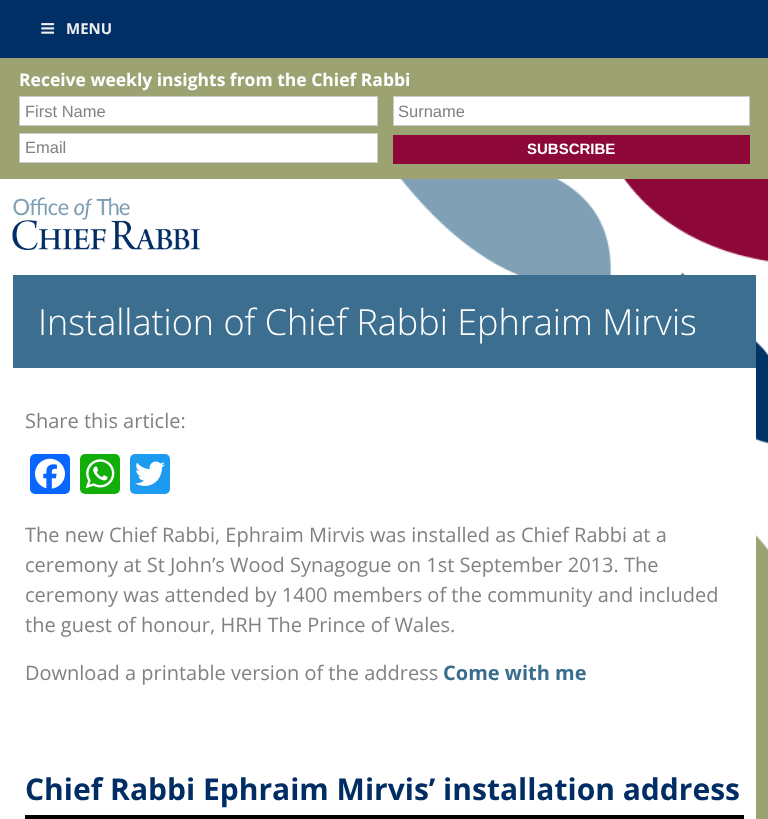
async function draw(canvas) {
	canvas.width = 768;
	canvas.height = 819;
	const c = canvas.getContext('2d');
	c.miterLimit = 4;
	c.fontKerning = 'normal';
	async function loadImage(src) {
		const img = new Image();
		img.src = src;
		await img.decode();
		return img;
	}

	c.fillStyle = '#fff';
	c.fillRect(0, 0, 768, 819);
	c.drawImage(await loadImage('img1.png'), 400, 179, 368, 640);
	c.fillStyle = '#002f65';
	c.fillRect(0, 0, 768, 58);
	c.drawImage(await loadImage('img2.png'), 41, 23, 14, 11);
	c.font = 'bold 15px Open Sans';
	c.fillStyle = '#eee';
	c.fillText('MENU', 66, 34);
	c.fillStyle = '#9da273';
	c.fillRect(0, 58, 768, 121);
	c.font = 'bold 17.5px Open Sans';
	c.fillStyle = '#fff';
	c.fillText('Receive weekly insights from the Chief Rabbi', 19, 86);
	c.beginPath();
	c.rect(19.5, 96.5, 358, 29);
	c.fill();
	c.strokeStyle = '#ccc';
	c.stroke();
	c.font = '16.5px Liberation Sans';
	c.fillStyle = '#7f8184';
	c.fillText('First Name', 25, 117);
	c.fillStyle = '#fff';
	c.beginPath();
	c.rect(393.5, 96.5, 356, 29);
	c.fill();
	c.stroke();
	c.fillStyle = '#7f8184';
	c.fillText('Surname', 398, 117);
	c.fillStyle = '#fff';
	c.beginPath();
	c.rect(19.5, 133.5, 358, 29);
	c.fill();
	c.stroke();
	c.fillStyle = '#7f8184';
	c.fillText('Email', 25, 153);
	c.fillStyle = '#8d0838';
	c.fillRect(393, 135, 357, 29);
	c.font = 'bold 15px Liberation Sans';
	c.fillStyle = '#fff';
	c.fillText('SUBSCRIBE', 527, 154);
	c.drawImage(await loadImage('img3.png'), 12, 197, 188, 53);
	c.fillRect(400, 368, 356, 451);
	c.fillStyle = '#3b6e8f';
	c.fillRect(13, 275, 743, 93);
	c.font = '300 36px Open Sans';
	c.fillStyle = '#fff';
	c.fillText('Installation of Chief Rabbi Ephraim Mirvis', 38, 335);
	c.font = '20px Open Sans';
	c.fillStyle = '#7f8184';
	c.fillText('Share this article:', 25, 428);
	c.fillStyle = '#0866ff';
	c.beginPath();
	c.roundRect(30, 454, 40, 40, 5);
	c.fill();
	c.drawImage(await loadImage('img4.png'), 35, 458, 30, 31);
	c.fillStyle = '#12af0a';
	c.beginPath();
	c.roundRect(80, 454, 40, 40, 5);
	c.fill();
	c.drawImage(await loadImage('img5.png'), 85, 459, 30, 30);
	c.fillStyle = '#1d9bf0';
	c.beginPath();
	c.roundRect(130, 454, 40, 40, 5);
	c.fill();
	c.drawImage(await loadImage('img6.png'), 135, 461, 30, 25);
	c.fillStyle = '#7f8184';
	for (const [text, x, y] of [
		['The new Chief Rabbi, Ephraim Mirvis was installed as Chief Rabbi at a', 25, 542],
		['ceremony at St John’s Wood Synagogue on 1st September 2013. The', 25, 572],
		['ceremony was attended by 1400 members of the community and included', 25, 602],
		['the guest of honour, HRH The Prince of Wales.', 25, 632],
		['Download a printable version of the address', 25, 680],
	]) {
		c.fillText(text, x, y);
	}
	c.font = 'bold 20px Open Sans';
	c.fillStyle = '#396d8e';
	c.fillText('Come with me', 443, 680);
	c.font = 'bold 30px Open Sans';
	c.fillStyle = '#002e64';
	c.fillText('Chief Rabbi Ephraim Mirvis’ installation address', 25, 800);
	c.fillStyle = '#000';
	c.fillRect(25, 815, 719, 4);
}

draw(document.querySelector('canvas'));
